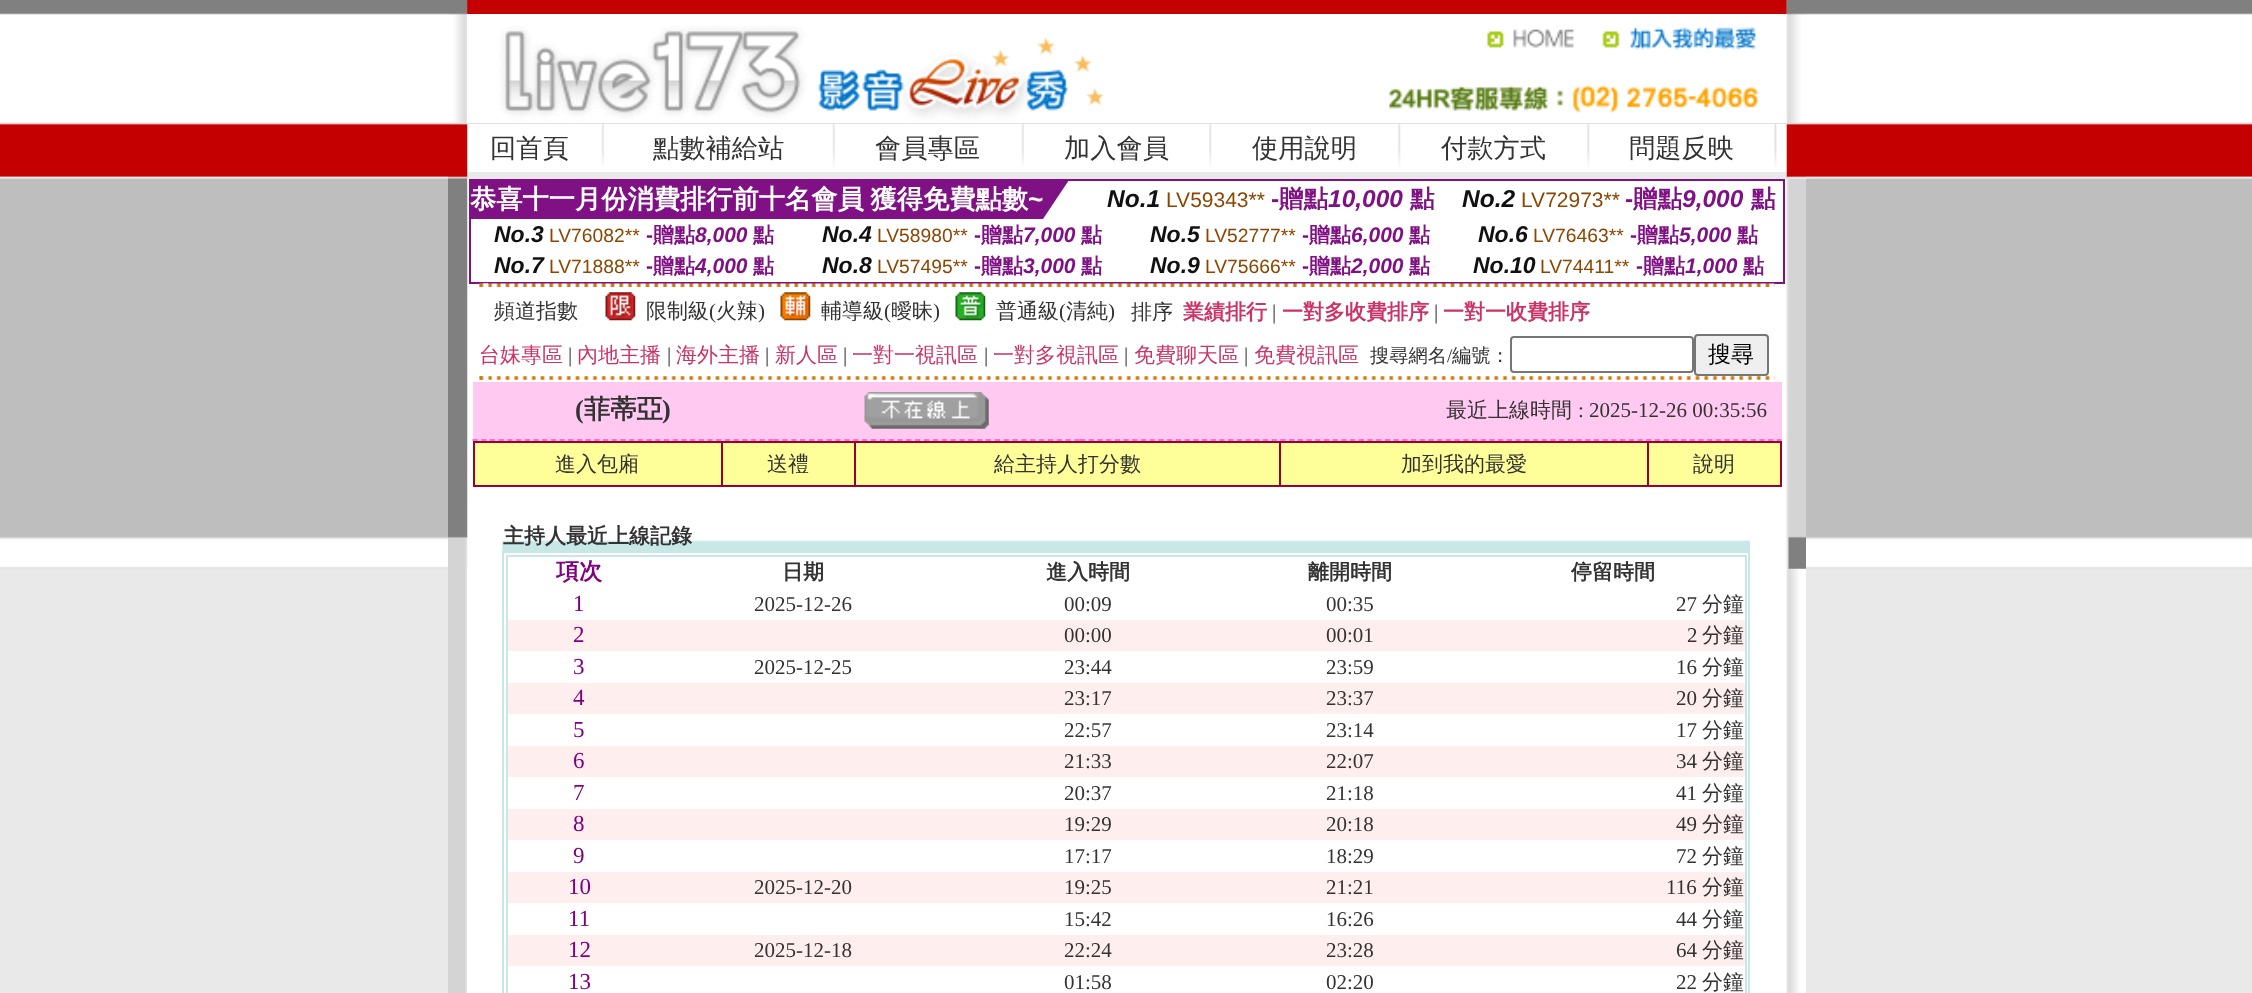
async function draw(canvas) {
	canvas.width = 2252;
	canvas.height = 993;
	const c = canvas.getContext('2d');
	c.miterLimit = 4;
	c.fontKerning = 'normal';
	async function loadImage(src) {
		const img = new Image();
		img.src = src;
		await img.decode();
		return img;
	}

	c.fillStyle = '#fff';
	c.fillRect(0, 0, 2252, 993);
	c.drawImage(await loadImage('img1.png'), 0, 0, 2252, 993);
	c.drawImage(await loadImage('img2.png'), 448, 568, 19, 425);
	for (const [x, y, w, h, color] of [
		[467, 14, 1320, 979, '#fff'],
		[467, 0, 1320, 14, '#c40000'],
		[467, 123, 1320, 1, '#e1e1e1'],
		[467, 172, 1320, 7, '#e9e9e9'],
	]) {
		c.fillStyle = color;
		c.fillRect(x, y, w, h);
	}
	c.drawImage(await loadImage('img3.png'), 448, 0, 20, 569);
	c.drawImage(await loadImage('img4.png'), 467, 14, 638, 108);
	c.drawImage(await loadImage('img5.png'), 1487, 29, 87, 19);
	c.drawImage(await loadImage('img20.png'), 1786, 0, 20, 993);
	c.drawImage(await loadImage('img6.png'), 1602, 14, 185, 47);
	c.drawImage(await loadImage('img7.png'), 1388, 61, 399, 61);
	c.font = '500 26.25px WenQuanYi Zen Hei';
	c.fillStyle = '#333';
	c.fillText('回首頁', 490, 157);
	c.drawImage(await loadImage('img8.png'), 601, 124, 3, 43);
	c.fillText('點數補給站', 653, 157);
	c.drawImage(await loadImage('img8.png'), 832, 124, 3, 43);
	c.fillText('會員專區', 875, 157);
	c.drawImage(await loadImage('img8.png'), 1021, 124, 3, 43);
	c.fillText('加入會員', 1064, 157);
	c.drawImage(await loadImage('img9.png'), 1209, 124, 3, 43);
	c.fillText('使用說明', 1252, 157);
	c.drawImage(await loadImage('img9.png'), 1398, 124, 3, 43);
	c.fillText('付款方式', 1441, 157);
	c.drawImage(await loadImage('img9.png'), 1587, 124, 3, 43);
	c.fillText('問題反映', 1629, 157);
	c.drawImage(await loadImage('img10.png'), 1774, 124, 3, 43);
	c.strokeStyle = '#7f1184';
	c.lineWidth = 2;
	c.strokeRect(470, 180, 1314, 103);
	c.fillStyle = '#7f1184';
	c.fillRect(471, 181, 572, 38);
	c.wordSpacing = '-1px';
	c.font = 'bold 26.25px WenQuanYi Zen Hei';
	c.fillStyle = '#fff';
	c.fillText('恭喜十一月份消費排行前十名會員 獲得免費點數', 470, 208);
	c.wordSpacing = '0px';
	c.font = 'bold 26.25px Liberation Sans';
	c.fillText('~', 1028, 208);
	c.fillStyle = '#7e1184';
	c.beginPath();
	c.moveTo(1043, 180);
	c.lineTo(1069, 180);
	c.lineTo(1043, 219);
	c.closePath();
	c.fill();
	c.font = 'italic bold 24.5px Liberation Sans';
	c.fillStyle = '#111';
	c.fillText('No.1', 1107, 207);
	c.font = '21px Liberation Sans';
	c.fillStyle = '#8c4600';
	c.fillText('LV59343**', 1166, 207);
	c.font = 'bold 24.5px Liberation Sans';
	c.fillStyle = '#7f1184';
	c.fillText('-', 1271, 207);
	c.font = 'bold 24.5px WenQuanYi Zen Hei';
	c.fillText('贈點', 1279, 207);
	c.font = 'italic bold 24.5px Liberation Sans';
	c.fillText('10,000', 1328, 207);
	c.font = 'bold 24.5px WenQuanYi Zen Hei';
	c.fillText('點', 1410, 207);
	c.font = 'italic bold 24.5px Liberation Sans';
	c.fillStyle = '#111';
	c.fillText('No.2', 1462, 207);
	c.font = '21px Liberation Sans';
	c.fillStyle = '#8c4600';
	c.fillText('LV72973**', 1521, 207);
	c.font = 'bold 24.5px Liberation Sans';
	c.fillStyle = '#7f1184';
	c.fillText('-', 1625, 207);
	c.font = 'bold 24.5px WenQuanYi Zen Hei';
	c.fillText('贈點', 1633, 207);
	c.font = 'italic bold 24.5px Liberation Sans';
	c.fillText('9,000', 1682, 207);
	c.font = 'bold 24.5px WenQuanYi Zen Hei';
	c.fillText('點', 1751, 207);
	c.font = 'italic bold 23px Liberation Sans';
	c.fillStyle = '#111';
	c.fillText('No.3', 494, 242);
	c.font = '19.25px Liberation Sans';
	c.fillStyle = '#8c4600';
	c.fillText('LV76082**', 549, 242);
	c.font = 'bold 21px Liberation Sans';
	c.fillStyle = '#7f1184';
	c.fillText('-', 646, 242);
	c.font = 'bold 21px WenQuanYi Zen Hei';
	c.fillText('贈點', 653, 242);
	c.font = 'italic bold 21px Liberation Sans';
	c.fillText('8,000', 695, 242);
	c.font = 'bold 21px WenQuanYi Zen Hei';
	c.fillText('點', 753, 242);
	c.font = 'italic bold 23px Liberation Sans';
	c.fillStyle = '#111';
	c.fillText('No.4', 822, 242);
	c.font = '19.25px Liberation Sans';
	c.fillStyle = '#8c4600';
	c.fillText('LV58980**', 877, 242);
	c.font = 'bold 21px Liberation Sans';
	c.fillStyle = '#7f1184';
	c.fillText('-', 974, 242);
	c.font = 'bold 21px WenQuanYi Zen Hei';
	c.fillText('贈點', 981, 242);
	c.font = 'italic bold 21px Liberation Sans';
	c.fillText('7,000', 1023, 242);
	c.font = 'bold 21px WenQuanYi Zen Hei';
	c.fillText('點', 1081, 242);
	c.font = 'italic bold 23px Liberation Sans';
	c.fillStyle = '#111';
	c.fillText('No.5', 1150, 242);
	c.font = '19.25px Liberation Sans';
	c.fillStyle = '#8c4600';
	c.fillText('LV52777**', 1205, 242);
	c.font = 'bold 21px Liberation Sans';
	c.fillStyle = '#7f1184';
	c.fillText('-', 1302, 242);
	c.font = 'bold 21px WenQuanYi Zen Hei';
	c.fillText('贈點', 1309, 242);
	c.font = 'italic bold 21px Liberation Sans';
	c.fillText('6,000', 1351, 242);
	c.font = 'bold 21px WenQuanYi Zen Hei';
	c.fillText('點', 1409, 242);
	c.font = 'italic bold 23px Liberation Sans';
	c.fillStyle = '#111';
	c.fillText('No.6', 1478, 242);
	c.font = '19.25px Liberation Sans';
	c.fillStyle = '#8c4600';
	c.fillText('LV76463**', 1533, 242);
	c.font = 'bold 21px Liberation Sans';
	c.fillStyle = '#7f1184';
	c.fillText('-', 1630, 242);
	c.font = 'bold 21px WenQuanYi Zen Hei';
	c.fillText('贈點', 1637, 242);
	c.font = 'italic bold 21px Liberation Sans';
	c.fillText('5,000', 1679, 242);
	c.font = 'bold 21px WenQuanYi Zen Hei';
	c.fillText('點', 1737, 242);
	c.font = 'italic bold 23px Liberation Sans';
	c.fillStyle = '#111';
	c.fillText('No.7', 494, 273);
	c.font = '19.25px Liberation Sans';
	c.fillStyle = '#8c4600';
	c.fillText('LV71888**', 549, 273);
	c.font = 'bold 21px Liberation Sans';
	c.fillStyle = '#7f1184';
	c.fillText('-', 646, 273);
	c.font = 'bold 21px WenQuanYi Zen Hei';
	c.fillText('贈點', 653, 273);
	c.font = 'italic bold 21px Liberation Sans';
	c.fillText('4,000', 695, 273);
	c.font = 'bold 21px WenQuanYi Zen Hei';
	c.fillText('點', 753, 273);
	c.font = 'italic bold 23px Liberation Sans';
	c.fillStyle = '#111';
	c.fillText('No.8', 822, 273);
	c.font = '19.25px Liberation Sans';
	c.fillStyle = '#8c4600';
	c.fillText('LV57495**', 877, 273);
	c.font = 'bold 21px Liberation Sans';
	c.fillStyle = '#7f1184';
	c.fillText('-', 974, 273);
	c.font = 'bold 21px WenQuanYi Zen Hei';
	c.fillText('贈點', 981, 273);
	c.font = 'italic bold 21px Liberation Sans';
	c.fillText('3,000', 1023, 273);
	c.font = 'bold 21px WenQuanYi Zen Hei';
	c.fillText('點', 1081, 273);
	c.font = 'italic bold 23px Liberation Sans';
	c.fillStyle = '#111';
	c.fillText('No.9', 1150, 273);
	c.font = '19.25px Liberation Sans';
	c.fillStyle = '#8c4600';
	c.fillText('LV75666**', 1205, 273);
	c.font = 'bold 21px Liberation Sans';
	c.fillStyle = '#7f1184';
	c.fillText('-', 1302, 273);
	c.font = 'bold 21px WenQuanYi Zen Hei';
	c.fillText('贈點', 1309, 273);
	c.font = 'italic bold 21px Liberation Sans';
	c.fillText('2,000', 1351, 273);
	c.font = 'bold 21px WenQuanYi Zen Hei';
	c.fillText('點', 1409, 273);
	c.font = 'italic bold 23px Liberation Sans';
	c.fillStyle = '#111';
	c.fillText('No.10', 1473, 273);
	c.font = '19.25px Liberation Sans';
	c.fillStyle = '#8c4600';
	c.fillText('LV74411**', 1540, 273);
	c.font = 'bold 21px Liberation Sans';
	c.fillStyle = '#7f1184';
	c.fillText('-', 1636, 273);
	c.font = 'bold 21px WenQuanYi Zen Hei';
	c.fillText('贈點', 1643, 273);
	c.font = 'italic bold 21px Liberation Sans';
	c.fillText('1,000', 1685, 273);
	c.font = 'bold 21px WenQuanYi Zen Hei';
	c.fillText('點', 1743, 273);
	c.drawImage(await loadImage('img11.png'), 479, 283, 1296, 4);
	c.drawImage(await loadImage('img12.png'), 479, 283, 10, 4);
	c.font = '500 21px WenQuanYi Zen Hei';
	c.fillStyle = '#333';
	c.fillText('頻道指數', 494, 318);
	c.drawImage(await loadImage('img13.png'), 605, 292, 31, 29);
	c.fillText('限制級', 646, 318);
	c.font = '21px Liberation Serif';
	c.fillText('(', 709, 318);
	c.font = '500 21px WenQuanYi Zen Hei';
	c.fillText('火辣', 716, 318);
	c.font = '21px Liberation Serif';
	c.fillText(')', 758, 318);
	c.drawImage(await loadImage('img14.png'), 780, 292, 31, 29);
	c.font = '500 21px WenQuanYi Zen Hei';
	c.fillText('輔導級', 821, 318);
	c.font = '21px Liberation Serif';
	c.fillText('(', 884, 318);
	c.font = '500 21px WenQuanYi Zen Hei';
	c.fillText('曖昧', 891, 318);
	c.font = '21px Liberation Serif';
	c.fillText(')', 933, 318);
	c.drawImage(await loadImage('img15.png'), 955, 292, 31, 29);
	c.font = '500 21px WenQuanYi Zen Hei';
	c.fillText('普通級', 996, 318);
	c.font = '21px Liberation Serif';
	c.fillText('(', 1059, 318);
	c.font = '500 21px WenQuanYi Zen Hei';
	c.fillText('清純', 1066, 318);
	c.font = '21px Liberation Serif';
	c.fillText(')', 1108, 318);
	c.font = '500 21px WenQuanYi Zen Hei';
	c.fillText('排序', 1131, 319);
	c.font = 'bold 21px WenQuanYi Zen Hei';
	c.fillStyle = '#c36';
	c.fillText('業績排行', 1183, 319);
	c.font = '21px Liberation Serif';
	c.fillStyle = '#333';
	c.fillText('|', 1272, 319);
	c.font = 'bold 21px WenQuanYi Zen Hei';
	c.fillStyle = '#c36';
	c.fillText('一對多收費排序', 1282, 319);
	c.font = '21px Liberation Serif';
	c.fillStyle = '#333';
	c.fillText('|', 1434, 319);
	c.font = 'bold 21px WenQuanYi Zen Hei';
	c.fillStyle = '#c36';
	c.fillText('一對一收費排序', 1443, 319);
	c.font = '500 21px WenQuanYi Zen Hei';
	c.fillText('台妹專區', 479, 362);
	c.font = '21px Liberation Serif';
	c.fillStyle = '#333';
	c.fillText('|', 568, 362);
	c.font = '500 21px WenQuanYi Zen Hei';
	c.fillStyle = '#c36';
	c.fillText('內地主播', 577, 362);
	c.font = '21px Liberation Serif';
	c.fillStyle = '#333';
	c.fillText('|', 667, 362);
	c.font = '500 21px WenQuanYi Zen Hei';
	c.fillStyle = '#c36';
	c.fillText('海外主播', 676, 362);
	c.font = '21px Liberation Serif';
	c.fillStyle = '#333';
	c.fillText('|', 765, 362);
	c.font = '500 21px WenQuanYi Zen Hei';
	c.fillStyle = '#c36';
	c.fillText('新人區', 775, 362);
	c.font = '21px Liberation Serif';
	c.fillStyle = '#333';
	c.fillText('|', 843, 362);
	c.font = '500 21px WenQuanYi Zen Hei';
	c.fillStyle = '#c36';
	c.fillText('一對一視訊區', 852, 362);
	c.font = '21px Liberation Serif';
	c.fillStyle = '#333';
	c.fillText('|', 984, 362);
	c.font = '500 21px WenQuanYi Zen Hei';
	c.fillStyle = '#c36';
	c.fillText('一對多視訊區', 993, 362);
	c.font = '21px Liberation Serif';
	c.fillStyle = '#333';
	c.fillText('|', 1124, 362);
	c.font = '500 21px WenQuanYi Zen Hei';
	c.fillStyle = '#c36';
	c.fillText('免費聊天區', 1134, 362);
	c.font = '21px Liberation Serif';
	c.fillStyle = '#333';
	c.fillText('|', 1244, 362);
	c.font = '500 21px WenQuanYi Zen Hei';
	c.fillStyle = '#c36';
	c.fillText('免費視訊區', 1254, 362);
	c.font = '500 19.25px WenQuanYi Zen Hei';
	c.fillStyle = '#333';
	c.fillText('搜尋網名', 1370, 362);
	c.font = '19.25px Liberation Serif';
	c.fillText('/', 1447, 362);
	c.font = '500 19.25px WenQuanYi Zen Hei';
	c.fillText('編號：', 1452, 362);
	c.beginPath();
	c.roundRect(1511, 337, 182, 35, 3);
	c.strokeStyle = '#767676';
	c.stroke();
	c.fillStyle = '#efefef';
	c.beginPath();
	c.roundRect(1695, 335, 73, 40, 3);
	c.fill();
	c.stroke();
	c.font = '500 23px WenQuanYi Zen Hei';
	c.fillStyle = '#000';
	c.fillText('搜尋', 1708, 362);
	c.drawImage(await loadImage('img16.png'), 479, 376, 1296, 4);
	c.drawImage(await loadImage('img17.png'), 479, 376, 10, 4);
	c.fillStyle = '#ffc9f2';
	c.fillRect(473, 382, 1309, 59);
	c.beginPath();
	c.moveTo(472.5, 440);
	c.lineTo(773.5, 440);
	c.strokeStyle = '#f572cf';
	c.lineWidth = 1.8;
	c.setLineDash([5.25, 3.45]);
	c.stroke();
	c.font = 'bold 26.25px Liberation Serif';
	c.fillStyle = '#333';
	c.fillText('(', 575, 418);
	c.font = 'bold 26.25px WenQuanYi Zen Hei';
	c.fillText('菲蒂亞', 584, 418);
	c.font = 'bold 26.25px Liberation Serif';
	c.fillText(')', 662, 418);
	c.beginPath();
	c.moveTo(773.5, 440);
	c.lineTo(1080, 440);
	c.setLineDash([5.25, 3.6]);
	c.stroke();
	c.drawImage(await loadImage('img18.png'), 864, 392, 125, 37);
	c.beginPath();
	c.moveTo(1080, 440);
	c.lineTo(1781.5, 440);
	c.setLineDash([5.25, 3.46]);
	c.stroke();
	c.font = '500 21px WenQuanYi Zen Hei';
	c.fillText('最近上線時間', 1446, 417);
	c.font = '21px Liberation Serif';
	c.fillText(': 2025-12-26 00:35:56', 1578, 417);
	for (const [x, y, w, h, color] of [
		[473, 441, 1309, 2, '#903'],
		[1780, 441, 2, 46, '#903'],
		[473, 485, 1309, 2, '#903'],
		[473, 441, 2, 46, '#903'],
		[475, 443, 246, 42, '#ff9'],
	]) {
		c.fillStyle = color;
		c.fillRect(x, y, w, h);
	}
	c.font = '500 21px WenQuanYi Zen Hei';
	c.fillStyle = '#333';
	c.fillText('進入包廂', 555, 471);
	c.fillStyle = '#ff9';
	c.fillRect(723, 443, 131, 42);
	c.fillStyle = '#903';
	c.fillRect(721, 441, 2, 46);
	c.fillStyle = '#333';
	c.fillText('送禮', 767, 471);
	c.fillStyle = '#ff9';
	c.fillRect(856, 443, 423, 42);
	c.fillStyle = '#903';
	c.fillRect(854, 441, 2, 46);
	c.fillStyle = '#333';
	c.fillText('給主持人打分數', 994, 471);
	c.fillStyle = '#ff9';
	c.fillRect(1281, 443, 366, 42);
	c.fillStyle = '#903';
	c.fillRect(1279, 441, 2, 46);
	c.fillStyle = '#333';
	c.fillText('加到我的最愛', 1401, 471);
	c.fillStyle = '#ff9';
	c.fillRect(1649, 443, 131, 42);
	c.fillStyle = '#903';
	c.fillRect(1647, 441, 2, 46);
	c.fillStyle = '#333';
	c.fillText('說明', 1693, 471);
	c.drawImage(await loadImage('img19.png'), 502, 540, 1248, 11);
	c.font = 'bold 21px WenQuanYi Zen Hei';
	c.fillText('主持人最近上線記錄', 503, 543);
	c.strokeStyle = '#c7e8e7';
	c.lineWidth = 2;
	c.setLineDash([]);
	c.strokeRect(503, 552, 1246, 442);
	c.strokeRect(507, 556, 1239, 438);
	c.font = 'bold 23px WenQuanYi Zen Hei';
	c.fillStyle = '#800080';
	c.fillText('項次', 556, 579);
	c.font = 'bold 21px WenQuanYi Zen Hei';
	c.fillStyle = '#333';
	for (const [text, x, y] of [
		['日期', 782, 579],
		['進入時間', 1046, 579],
		['離開時間', 1308, 579],
		['停留時間', 1571, 579],
	]) {
		c.fillText(text, x, y);
	}
	c.font = '23px Liberation Serif';
	c.fillStyle = '#800080';
	c.fillText('1', 573, 611);
	c.font = '21px Liberation Serif';
	c.fillStyle = '#333';
	for (const [text, x, y] of [
		['2025-12-26', 754, 611],
		['00:09', 1064, 611],
		['00:35', 1326, 611],
		['27', 1676, 611],
	]) {
		c.fillText(text, x, y);
	}
	c.font = '500 21px WenQuanYi Zen Hei';
	c.fillText('分鐘', 1702, 611);
	c.fillStyle = '#fee';
	c.fillRect(508, 620, 1237, 31);
	c.font = '23px Liberation Serif';
	c.fillStyle = '#800080';
	c.fillText('2', 573, 642);
	c.font = '21px Liberation Serif';
	c.fillStyle = '#333';
	for (const [text, x, y] of [
		['00:00', 1064, 642],
		['00:01', 1326, 642],
		['2', 1687, 642],
	]) {
		c.fillText(text, x, y);
	}
	c.font = '500 21px WenQuanYi Zen Hei';
	c.fillText('分鐘', 1702, 642);
	c.font = '23px Liberation Serif';
	c.fillStyle = '#800080';
	c.fillText('3', 573, 674);
	c.font = '21px Liberation Serif';
	c.fillStyle = '#333';
	for (const [text, x, y] of [
		['2025-12-25', 754, 674],
		['23:44', 1064, 674],
		['23:59', 1326, 674],
		['16', 1676, 674],
	]) {
		c.fillText(text, x, y);
	}
	c.font = '500 21px WenQuanYi Zen Hei';
	c.fillText('分鐘', 1702, 674);
	c.fillStyle = '#fee';
	c.fillRect(508, 683, 1237, 31);
	c.font = '23px Liberation Serif';
	c.fillStyle = '#800080';
	c.fillText('4', 573, 705);
	c.font = '21px Liberation Serif';
	c.fillStyle = '#333';
	for (const [text, x, y] of [
		['23:17', 1064, 705],
		['23:37', 1326, 705],
		['20', 1676, 705],
	]) {
		c.fillText(text, x, y);
	}
	c.font = '500 21px WenQuanYi Zen Hei';
	c.fillText('分鐘', 1702, 705);
	c.font = '23px Liberation Serif';
	c.fillStyle = '#800080';
	c.fillText('5', 573, 737);
	c.font = '21px Liberation Serif';
	c.fillStyle = '#333';
	for (const [text, x, y] of [
		['22:57', 1064, 737],
		['23:14', 1326, 737],
		['17', 1676, 737],
	]) {
		c.fillText(text, x, y);
	}
	c.font = '500 21px WenQuanYi Zen Hei';
	c.fillText('分鐘', 1702, 737);
	c.fillStyle = '#fee';
	c.fillRect(508, 746, 1237, 31);
	c.font = '23px Liberation Serif';
	c.fillStyle = '#800080';
	c.fillText('6', 573, 768);
	c.font = '21px Liberation Serif';
	c.fillStyle = '#333';
	for (const [text, x, y] of [
		['21:33', 1064, 768],
		['22:07', 1326, 768],
		['34', 1676, 768],
	]) {
		c.fillText(text, x, y);
	}
	c.font = '500 21px WenQuanYi Zen Hei';
	c.fillText('分鐘', 1702, 768);
	c.font = '23px Liberation Serif';
	c.fillStyle = '#800080';
	c.fillText('7', 573, 800);
	c.font = '21px Liberation Serif';
	c.fillStyle = '#333';
	for (const [text, x, y] of [
		['20:37', 1064, 800],
		['21:18', 1326, 800],
		['41', 1676, 800],
	]) {
		c.fillText(text, x, y);
	}
	c.font = '500 21px WenQuanYi Zen Hei';
	c.fillText('分鐘', 1702, 800);
	c.fillStyle = '#fee';
	c.fillRect(508, 809, 1237, 31);
	c.font = '23px Liberation Serif';
	c.fillStyle = '#800080';
	c.fillText('8', 573, 831);
	c.font = '21px Liberation Serif';
	c.fillStyle = '#333';
	for (const [text, x, y] of [
		['19:29', 1064, 831],
		['20:18', 1326, 831],
		['49', 1676, 831],
	]) {
		c.fillText(text, x, y);
	}
	c.font = '500 21px WenQuanYi Zen Hei';
	c.fillText('分鐘', 1702, 831);
	c.font = '23px Liberation Serif';
	c.fillStyle = '#800080';
	c.fillText('9', 573, 863);
	c.font = '21px Liberation Serif';
	c.fillStyle = '#333';
	for (const [text, x, y] of [
		['17:17', 1064, 863],
		['18:29', 1326, 863],
		['72', 1676, 863],
	]) {
		c.fillText(text, x, y);
	}
	c.font = '500 21px WenQuanYi Zen Hei';
	c.fillText('分鐘', 1702, 863);
	c.fillStyle = '#fee';
	c.fillRect(508, 872, 1237, 31);
	c.font = '23px Liberation Serif';
	c.fillStyle = '#800080';
	c.fillText('10', 568, 894);
	c.font = '21px Liberation Serif';
	c.fillStyle = '#333';
	for (const [text, x, y] of [
		['2025-12-20', 754, 894],
		['19:25', 1064, 894],
		['21:21', 1326, 894],
		['116', 1666, 894],
	]) {
		c.fillText(text, x, y);
	}
	c.font = '500 21px WenQuanYi Zen Hei';
	c.fillText('分鐘', 1702, 894);
	c.font = '23px Liberation Serif';
	c.fillStyle = '#800080';
	c.fillText('11', 568, 926);
	c.font = '21px Liberation Serif';
	c.fillStyle = '#333';
	for (const [text, x, y] of [
		['15:42', 1064, 926],
		['16:26', 1326, 926],
		['44', 1676, 926],
	]) {
		c.fillText(text, x, y);
	}
	c.font = '500 21px WenQuanYi Zen Hei';
	c.fillText('分鐘', 1702, 926);
	c.fillStyle = '#fee';
	c.fillRect(508, 935, 1237, 31);
	c.font = '23px Liberation Serif';
	c.fillStyle = '#800080';
	c.fillText('12', 568, 957);
	c.font = '21px Liberation Serif';
	c.fillStyle = '#333';
	for (const [text, x, y] of [
		['2025-12-18', 754, 957],
		['22:24', 1064, 957],
		['23:28', 1326, 957],
		['64', 1676, 957],
	]) {
		c.fillText(text, x, y);
	}
	c.font = '500 21px WenQuanYi Zen Hei';
	c.fillText('分鐘', 1702, 957);
	c.font = '23px Liberation Serif';
	c.fillStyle = '#800080';
	c.fillText('13', 568, 989);
	c.font = '21px Liberation Serif';
	c.fillStyle = '#333';
	for (const [text, x, y] of [
		['01:58', 1064, 989],
		['02:20', 1326, 989],
		['22', 1676, 989],
	]) {
		c.fillText(text, x, y);
	}
	c.font = '500 21px WenQuanYi Zen Hei';
	c.fillText('分鐘', 1702, 989);
	c.drawImage(await loadImage('img21.png'), 1786, 0, 20, 569);
}

draw(document.querySelector('canvas'));
